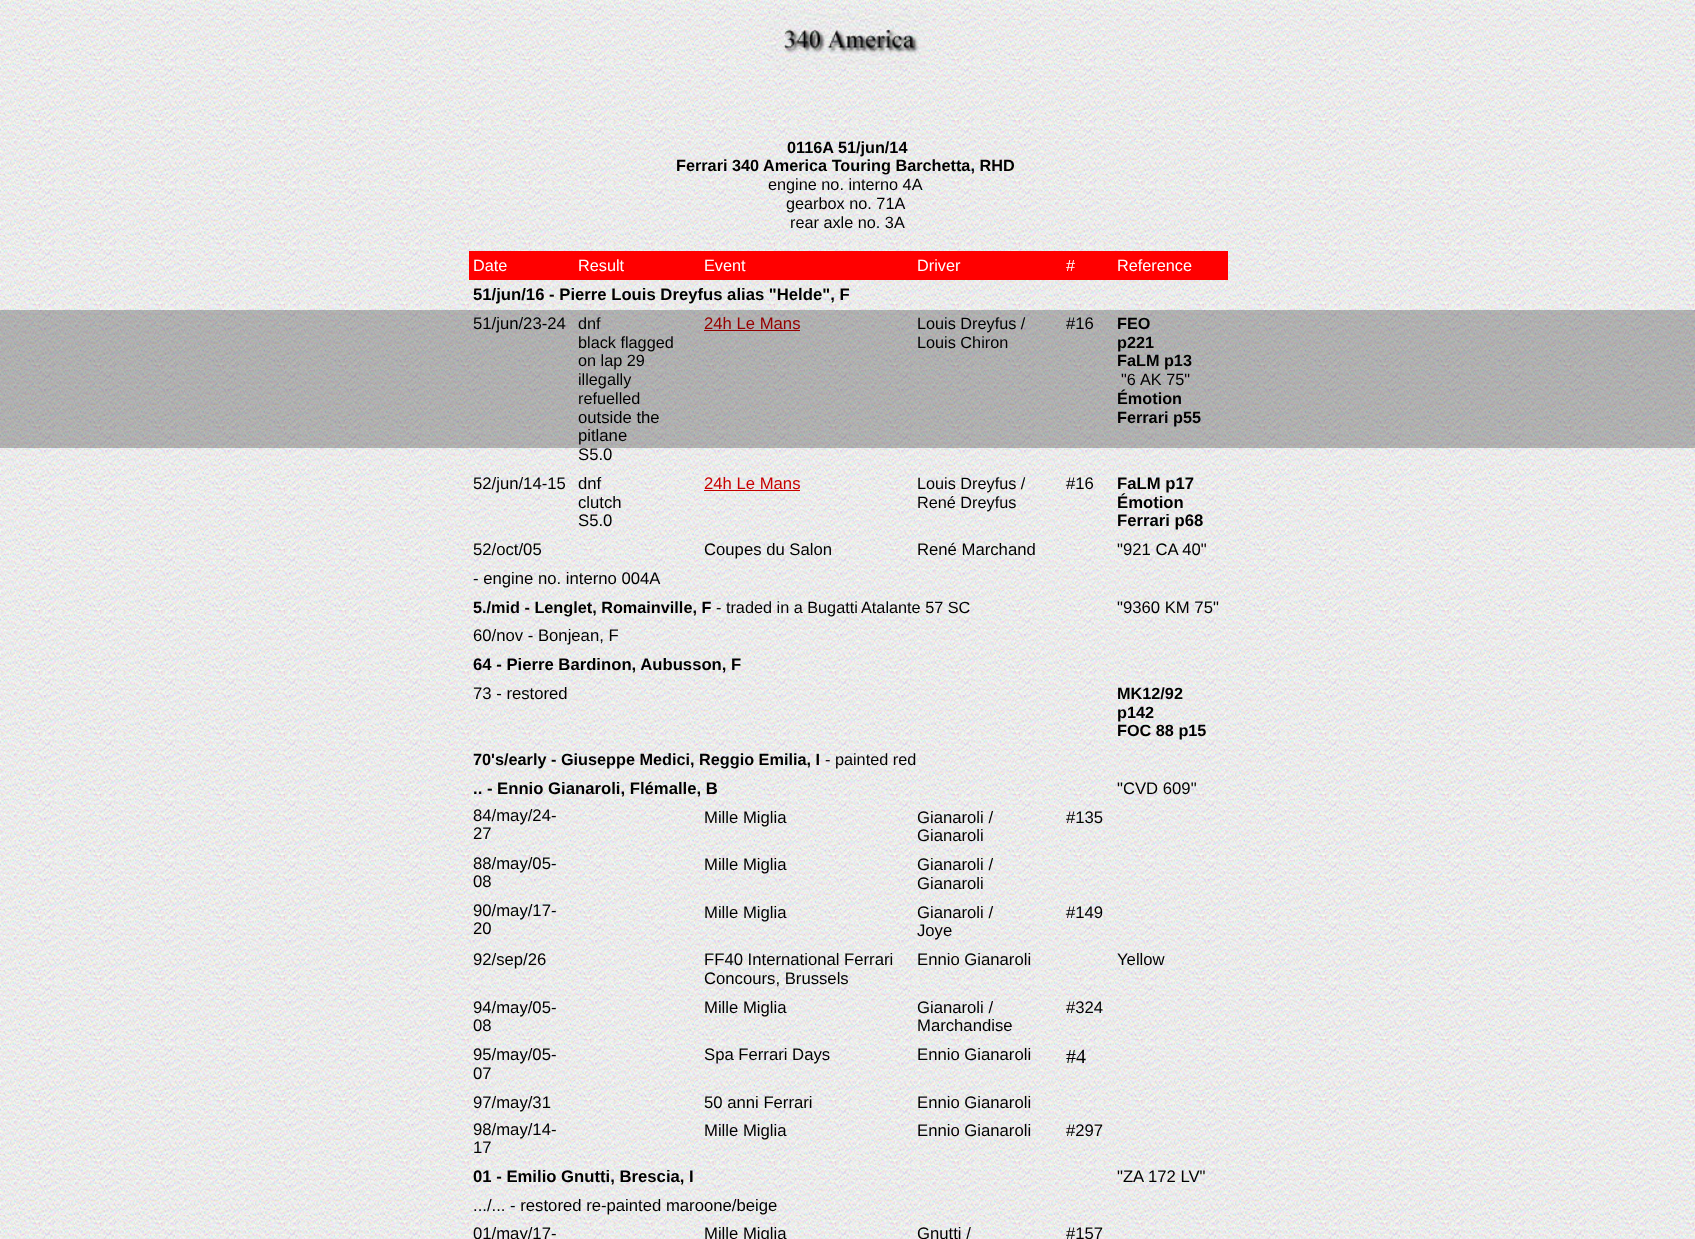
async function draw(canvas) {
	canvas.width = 1695;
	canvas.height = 1239;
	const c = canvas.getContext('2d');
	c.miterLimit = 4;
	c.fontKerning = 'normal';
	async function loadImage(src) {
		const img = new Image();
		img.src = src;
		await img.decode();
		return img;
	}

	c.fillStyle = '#fff';
	c.fillRect(0, 0, 1695, 1239);
	c.drawImage(await loadImage('img1.png'), 0, 0, 1695, 1239);
	c.drawImage(await loadImage('img2.png'), 768, 11, 159, 57);
	c.font = 'bold 16.25px Liberation Sans';
	c.fillStyle = '#000';
	for (const [text, x, y] of [
		['0116A 51/jun/14', 787, 153],
		['Ferrari 340', 676, 171],
		['America Touring Barchetta, RHD', 763, 171],
	]) {
		c.fillText(text, x, y);
	}
	c.font = '16.25px Liberation Sans';
	for (const [text, x, y] of [
		['engine no. interno 4A', 768, 190],
		['gearbox no. 71A', 786, 209],
		['rear axle no. 3A', 790, 228],
	]) {
		c.fillText(text, x, y);
	}
	c.fillStyle = '#f00';
	c.fillRect(469, 251, 759, 29);
	c.fillStyle = '#fff';
	for (const [text, x, y] of [
		['Date', 473, 271],
		['Result', 578, 271],
		['Event', 704, 271],
		['Driver', 917, 271],
		['#', 1066, 271],
		['Reference', 1117, 271],
	]) {
		c.fillText(text, x, y);
	}
	c.font = 'bold 16.7px Liberation Sans';
	c.fillStyle = '#000';
	c.fillText('51/jun/16 - Pierre Louis Dreyfus alias "Helde", F', 473, 300);
	c.font = '16.7px Liberation Sans';
	c.fillText('51/jun/23-24', 473, 329);
	c.font = '16.25px Liberation Sans';
	for (const [text, x, y] of [
		['dnf', 578, 329],
		['black flagged', 578, 348],
		['on lap 29', 578, 366],
		['illegally', 578, 385],
		['refuelled', 578, 404],
	]) {
		c.fillText(text, x, y);
	}
	c.font = '16.7px Liberation Sans';
	for (const [text, x, y] of [
		['outside the', 578, 423],
		['pitlane', 578, 441],
		['S5.0', 578, 460],
	]) {
		c.fillText(text, x, y);
	}
	c.fillStyle = '#c70000';
	c.fillText('24h Le Mans', 704, 329);
	c.fillRect(704, 330, 96, 1);
	c.font = '16.25px Liberation Sans';
	c.fillStyle = '#000';
	c.fillText('Louis Dreyfus /', 917, 329);
	c.fillText('Louis Chiron', 917, 348);
	c.font = '16.7px Liberation Sans';
	c.fillText('#16', 1066, 329);
	c.font = 'bold 16.25px Liberation Sans';
	for (const [text, x, y] of [
		['FEO', 1117, 329],
		['p221', 1117, 348],
		['FaLM p13', 1117, 366],
	]) {
		c.fillText(text, x, y);
	}
	c.font = '16.25px Liberation Sans';
	c.fillText('"6', 1121, 385);
	c.fillText('AK 75"', 1140, 385);
	c.font = 'bold 16.25px Liberation Sans';
	c.fillText('Émotion', 1117, 404);
	c.fillText('Ferrari p55', 1117, 423);
	c.font = '16.7px Liberation Sans';
	for (const [text, x, y] of [
		['52/jun/14-15', 473, 489],
		['dnf', 578, 489],
		['clutch', 578, 508],
		['S5.0', 578, 526],
	]) {
		c.fillText(text, x, y);
	}
	c.fillStyle = '#c70000';
	c.fillText('24h Le Mans', 704, 489);
	c.fillRect(704, 490, 96, 1);
	c.font = '16.25px Liberation Sans';
	c.fillStyle = '#000';
	c.fillText('Louis Dreyfus /', 917, 489);
	c.fillText('René Dreyfus', 917, 508);
	c.font = '16.7px Liberation Sans';
	c.fillText('#16', 1066, 489);
	c.font = 'bold 16.7px Liberation Sans';
	for (const [text, x, y] of [
		['FaLM p17', 1117, 489],
		['Émotion', 1117, 508],
		['Ferrari p68', 1117, 526],
	]) {
		c.fillText(text, x, y);
	}
	c.font = '16.7px Liberation Sans';
	for (const [text, x, y] of [
		['52/oct/05', 473, 555],
		['Coupes du Salon', 704, 555],
		['René Marchand', 917, 555],
		['"921 CA 40"', 1117, 555],
		['- engine no. interno 004A', 473, 584],
	]) {
		c.fillText(text, x, y);
	}
	c.font = 'bold 16.25px Liberation Sans';
	c.fillText('5./mid - Lenglet, Romainville, F', 473, 613);
	c.font = '16.25px Liberation Sans';
	c.fillText('- traded in a Bugatti', 716, 613);
	c.fillText('Atalante 57 SC', 861, 613);
	c.font = '16.7px Liberation Sans';
	c.fillText('"9360 KM 75"', 1117, 613);
	c.fillText('60/nov - Bonjean, F', 473, 641);
	c.font = 'bold 16.7px Liberation Sans';
	c.fillText('64 - Pierre Bardinon, Aubusson, F', 473, 670);
	c.font = '16.7px Liberation Sans';
	c.fillText('73 - restored', 473, 699);
	c.font = 'bold 16.25px Liberation Sans';
	for (const [text, x, y] of [
		['MK12/92', 1117, 699],
		['p142', 1117, 718],
		['FOC 88 p15', 1117, 736],
		['70\'s/early - Giuseppe Medici, Reggio Emilia, I', 473, 765],
	]) {
		c.fillText(text, x, y);
	}
	c.font = '16.25px Liberation Sans';
	c.fillText('- painted red', 825, 765);
	c.font = 'bold 16.7px Liberation Sans';
	c.fillText('.. - Ennio Gianaroli, Flémalle, B', 473, 794);
	c.font = '16.7px Liberation Sans';
	for (const [text, x, y] of [
		['"CVD 609"', 1117, 794],
		['84/may/24-', 473, 821],
		['27', 473, 839],
		['Mille Miglia', 704, 823],
		['Gianaroli /', 917, 823],
		['Gianaroli', 917, 841],
		['#135', 1066, 823],
		['88/may/05-', 473, 869],
		['08', 473, 887],
		['Mille Miglia', 704, 870],
		['Gianaroli /', 917, 870],
		['Gianaroli', 917, 889],
		['90/may/17-', 473, 916],
		['20', 473, 934],
		['Mille Miglia', 704, 918],
		['Gianaroli /', 917, 918],
		['Joye', 917, 936],
		['#149', 1066, 918],
		['92/sep/26', 473, 965],
		['FF40 International Ferrari', 704, 965],
		['Concours, Brussels', 704, 984],
		['Ennio Gianaroli', 917, 965],
		['Yellow', 1117, 965],
		['94/may/05-', 473, 1013],
		['08', 473, 1031],
		['Mille Miglia', 704, 1013],
		['Gianaroli /', 917, 1013],
		['Marchandise', 917, 1031],
		['#324', 1066, 1013],
		['95/may/05-', 473, 1060],
		['07', 473, 1079],
		['Spa Ferrari Days', 704, 1060],
		['Ennio Gianaroli', 917, 1060],
	]) {
		c.fillText(text, x, y);
	}
	c.font = '20px Liberation Serif';
	c.fillText('#4', 1066, 1063);
	c.font = '16.7px Liberation Sans';
	for (const [text, x, y] of [
		['97/may/31', 473, 1108],
		['50 anni Ferrari', 704, 1108],
		['Ennio Gianaroli', 917, 1108],
		['98/may/14-', 473, 1135],
		['17', 473, 1153],
		['Mille Miglia', 704, 1136],
		['Ennio Gianaroli', 917, 1136],
		['#297', 1066, 1136],
	]) {
		c.fillText(text, x, y);
	}
	c.font = 'bold 16.7px Liberation Sans';
	c.fillText('01 - Emilio Gnutti, Brescia, I', 473, 1182);
	c.font = '16.7px Liberation Sans';
	for (const [text, x, y] of [
		['"ZA 172 LV"', 1117, 1182],
		['.../... - restored re-painted maroone/beige', 473, 1211],
		['01/may/17-', 473, 1239],
		['Mille Miglia', 704, 1239],
		['Gnutti /', 917, 1239],
		['#157', 1066, 1239],
	]) {
		c.fillText(text, x, y);
	}
	c.fillStyle = '#00000040';
	c.fillRect(0, 310, 1695, 138);
}

draw(document.querySelector('canvas'));
